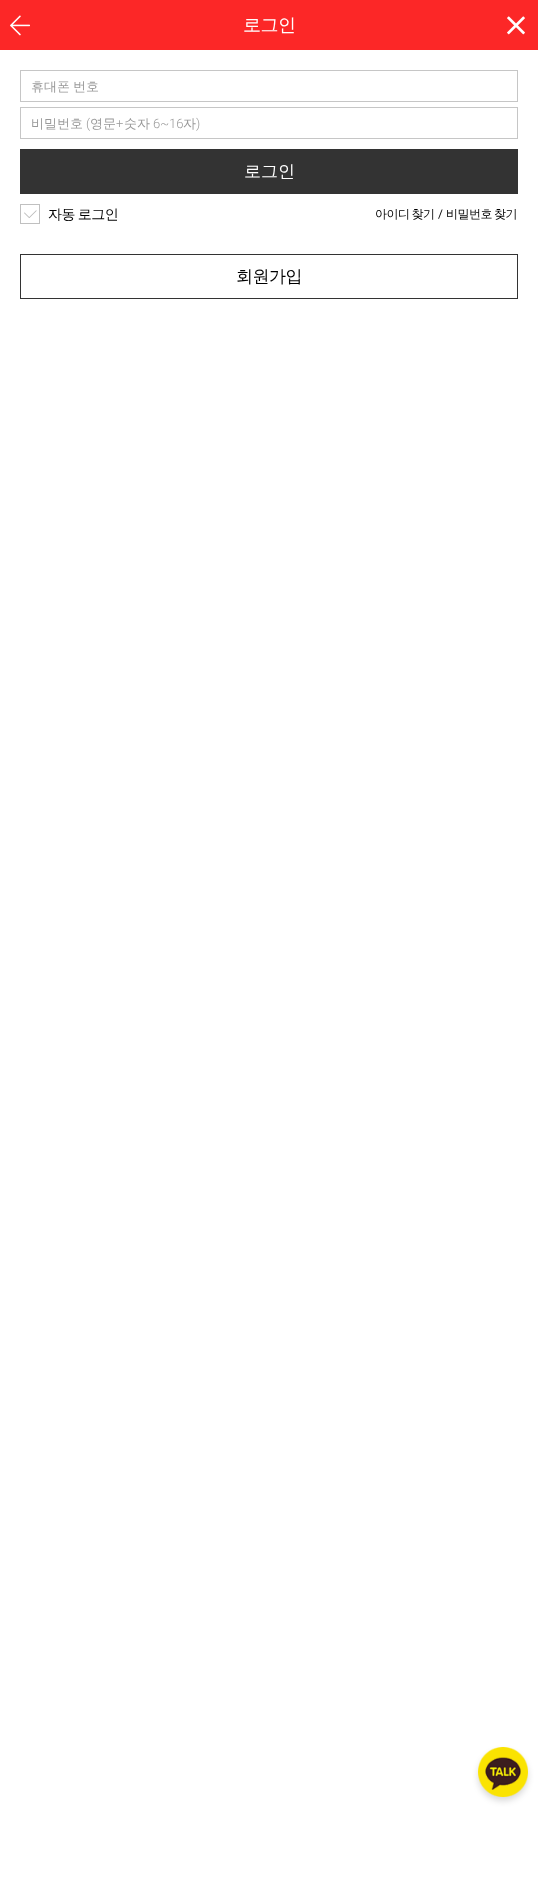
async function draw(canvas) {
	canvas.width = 538;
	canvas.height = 1877;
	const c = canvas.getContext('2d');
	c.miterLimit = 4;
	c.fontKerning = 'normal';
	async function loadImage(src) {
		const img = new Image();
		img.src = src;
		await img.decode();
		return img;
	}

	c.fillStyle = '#fff';
	c.fillRect(0, 0, 538, 1877);
	c.fillStyle = '#fc2727';
	c.fillRect(0, 0, 538, 50);
	c.drawImage(await loadImage('img1.png'), 10, 15, 20, 21);
	c.letterSpacing = '-0.5px';
	c.font = '500 18px WenQuanYi Zen Hei';
	c.fillStyle = '#fff';
	c.fillText('로그인', 243, 31);
	c.drawImage(await loadImage('img2.png'), 507, 16, 18, 19);
	c.strokeStyle = '#c6c6c6';
	c.strokeRect(20.5, 70.5, 497, 31);
	c.letterSpacing = '0px';
	c.wordSpacing = '-1px';
	c.font = '500 13px WenQuanYi Zen Hei';
	c.fillStyle = '#999';
	c.fillText('휴대폰 번호', 31, 91);
	c.strokeRect(20.5, 107.5, 497, 31);
	c.wordSpacing = '0px';
	c.fillText('비밀번호', 31, 128);
	c.font = '300 13px Roboto';
	c.fillText('(', 86, 128);
	c.font = '500 13px WenQuanYi Zen Hei';
	c.fillText('영문', 90, 128);
	c.font = '300 13px Roboto';
	c.fillText('+', 116, 128);
	c.font = '500 13px WenQuanYi Zen Hei';
	c.fillText('숫자', 124, 128);
	c.font = '300 13px Roboto';
	c.fillText('6~16', 153, 128);
	c.font = '500 13px WenQuanYi Zen Hei';
	c.fillText('자', 183, 128);
	c.font = '300 13px Roboto';
	c.fillText(')', 196, 128);
	c.fillStyle = '#333';
	c.fillRect(20, 149, 498, 45);
	c.font = '500 17px WenQuanYi Zen Hei';
	c.fillStyle = '#fff';
	c.fillText('로그인', 244, 177);
	c.drawImage(await loadImage('img3.png'), 20, 204, 20, 20);
	c.letterSpacing = '-0.5px';
	c.wordSpacing = '-1px';
	c.font = '500 14px WenQuanYi Zen Hei';
	c.fillStyle = '#000';
	c.fillText('자동 로그인', 48, 219);
	c.font = '500 12px WenQuanYi Zen Hei';
	c.fillText('아이디 찾기', 375, 218);
	c.wordSpacing = '0px';
	c.font = '12px Roboto';
	c.fillText('/', 438, 218);
	c.wordSpacing = '-1px';
	c.font = '500 12px WenQuanYi Zen Hei';
	c.fillText('비밀번호 찾기', 446, 218);
	c.strokeStyle = '#333';
	c.strokeRect(20.5, 254.5, 497, 44);
	c.wordSpacing = '0px';
	c.font = '500 17px WenQuanYi Zen Hei';
	c.fillText('회원가입', 236, 282);
	c.fillStyle = '#00000026';
	c.filter = 'blur(3px)';
	c.beginPath();
	c.roundRect(478, 1751, 50, 50, 25);
	c.fill();
	c.filter = 'none';
	c.drawImage(await loadImage('img4.png'), 478, 1747, 50, 50);
}

draw(document.querySelector('canvas'));
